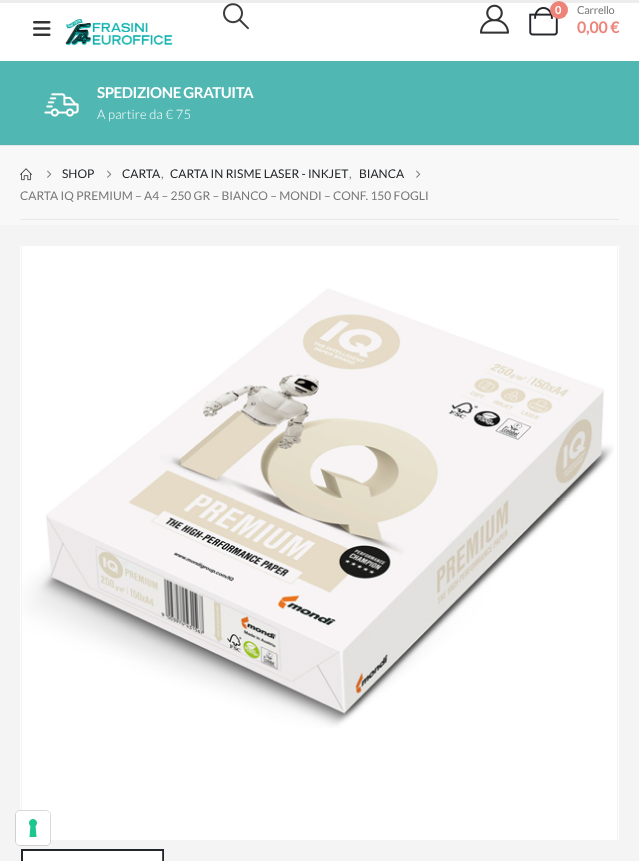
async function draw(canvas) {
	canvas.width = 639;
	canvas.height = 861;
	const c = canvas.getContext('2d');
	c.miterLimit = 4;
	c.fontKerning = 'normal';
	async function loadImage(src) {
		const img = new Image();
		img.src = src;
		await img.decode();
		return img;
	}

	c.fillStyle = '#fff';
	c.fillRect(0, 0, 639, 861);
	c.fillStyle = '#ededed';
	c.fillRect(0, 0, 639, 3);
	c.drawImage(await loadImage('img1.png'), 33, 21, 18, 15);
	c.drawImage(await loadImage('img2.png'), 65, 19, 108, 27);
	c.drawImage(await loadImage('img3.png'), 223, 3, 26, 27);
	c.drawImage(await loadImage('img4.png'), 480, 4, 29, 30);
	c.drawImage(await loadImage('img5.png'), 529, 7, 29, 29);
	c.fillStyle = '#ee8379';
	c.beginPath();
	c.arc(559, 10, 9, 0, 2 * Math.PI);
	c.fill();
	c.font = 'bold 11px Lato';
	c.fillStyle = '#fff';
	c.fillText('0', 555, 14);
	c.letterSpacing = '-0.25px';
	c.font = '11px Lato';
	c.fillStyle = '#777';
	c.fillText('Carrello', 577, 14);
	c.font = 'bold 16px Lato';
	c.fillStyle = '#ee8379';
	c.fillText('0,00 €', 577, 33);
	c.fillStyle = '#51b7b3';
	c.fillRect(0, 61, 639, 84);
	c.drawImage(await loadImage('img6.png'), 44, 93, 35, 24);
	c.letterSpacing = '-0.4px';
	c.font = 'bold 15px Lato';
	c.fillStyle = '#fff';
	c.fillText('SPEDIZIONE GRATUITA', 97, 98);
	c.letterSpacing = '0.1px';
	c.font = '300 13px Lato';
	c.fillText('A partire da € 75', 97, 119);
	c.fillStyle = '#f8f8f8';
	c.fillRect(0, 146, 639, 79);
	c.fillStyle = '#e7e7e7';
	c.fillRect(0, 145, 639, 1);
	c.drawImage(await loadImage('img7.png'), 20, 168, 12, 13);
	c.drawImage(await loadImage('img8.png'), 47, 170, 5, 8);
	c.letterSpacing = '0px';
	c.font = '12px Lato';
	c.fillStyle = '#222529';
	c.fillText('SHOP', 62, 178);
	c.drawImage(await loadImage('img8.png'), 107, 170, 5, 8);
	c.fillText('CARTA', 122, 178);
	c.fillStyle = '#777';
	c.fillText(',', 161, 178);
	c.fillStyle = '#222529';
	c.fillText('CARTA IN RISME LASER - INKJET', 170, 178);
	c.fillStyle = '#777';
	c.fillText(',', 349, 178);
	c.fillStyle = '#222529';
	c.fillText('BIANCA', 359, 178);
	c.drawImage(await loadImage('img8.png'), 416, 170, 5, 8);
	c.fillStyle = '#777';
	c.fillText('CARTA IQ PREMIUM – A4 – 250 GR – BIANCO – MONDI – CONF. 150 FOGLI', 20, 200);
	for (const [x, y, w, h, color] of [
		[20, 219, 599, 1, '#e7e7e7'],
		[0, 225, 639, 636, '#f4f4f4'],
		[20, 245, 599, 596, '#fff'],
	]) {
		c.fillStyle = color;
		c.fillRect(x, y, w, h);
	}
	c.strokeStyle = '#f4f4f4';
	c.strokeRect(21.5, 245.5, 596, 595);
	c.drawImage(await loadImage('img9.png'), 22, 288, 592, 440);
	c.beginPath();
	c.rect(22, 850, 141, 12);
	c.fill();
	c.strokeStyle = '#222529';
	c.lineWidth = 2;
	c.stroke();
	c.drawImage(await loadImage('img10.png'), 162, 851, 1, 10);
	c.beginPath();
	c.roundRect(15.5, 810.5, 35, 35, 4.5);
	c.strokeStyle = '#00000026';
	c.lineWidth = 1;
	c.stroke();
	c.beginPath();
	c.roundRect(16, 811, 34, 34, 4);
	c.fill();
	c.drawImage(await loadImage('img11.png'), 29, 819, 8, 18);
}

draw(document.querySelector('canvas'));
